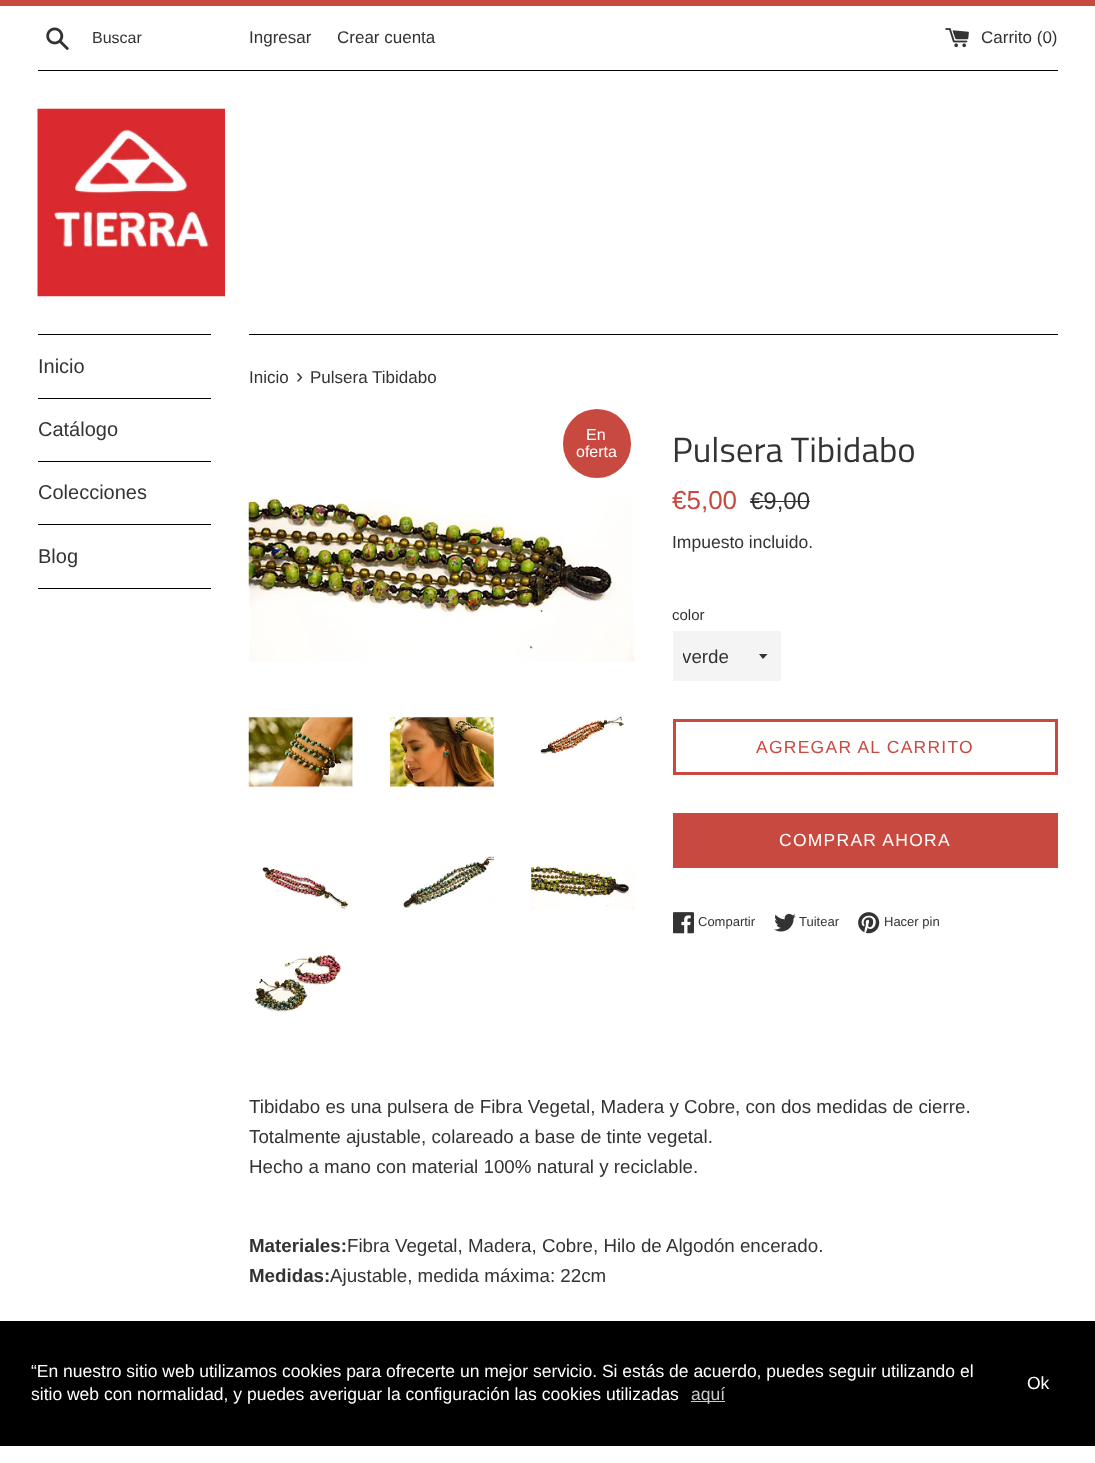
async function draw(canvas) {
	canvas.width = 1095;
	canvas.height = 1463;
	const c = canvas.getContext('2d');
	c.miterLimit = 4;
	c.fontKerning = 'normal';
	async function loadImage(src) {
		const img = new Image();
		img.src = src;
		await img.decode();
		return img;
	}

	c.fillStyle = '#fff';
	c.fillRect(0, 0, 1095, 1463);
	c.fillStyle = '#c8493f';
	c.fillRect(0, 0, 1095, 6);
	c.drawImage(await loadImage('img1.png'), 46, 27, 23, 23);
	c.font = '16px Liberation Sans';
	c.fillStyle = '#333';
	c.fillText('Buscar', 92, 43);
	c.font = '17px Liberation Sans';
	c.fillText('Ingresar', 249, 43);
	c.fillText('Crear cuenta', 337, 43);
	c.drawImage(await loadImage('img2.png'), 945, 28, 24, 20);
	c.fillText('Carrito (0)', 981, 43);
	c.fillStyle = '#000';
	c.fillRect(38, 70, 1020, 1);
	c.drawImage(await loadImage('img3.png'), 37, 108, 188, 189);
	c.fillRect(38, 334, 173, 1);
	c.fillRect(38, 398, 173, 1);
	c.font = '20px Liberation Sans';
	c.fillStyle = '#333';
	c.fillText('Inicio', 38, 373);
	c.fillStyle = '#000';
	c.fillRect(38, 461, 173, 1);
	c.fillStyle = '#333';
	c.fillText('Catálogo', 38, 436);
	c.fillStyle = '#000';
	c.fillRect(38, 524, 173, 1);
	c.fillStyle = '#333';
	c.fillText('Colecciones', 38, 499);
	c.fillStyle = '#000';
	c.fillRect(38, 588, 173, 1);
	c.fillStyle = '#333';
	c.fillText('Blog', 38, 563);
	c.fillStyle = '#000';
	c.fillRect(249, 334, 809, 1);
	c.font = '17px Liberation Sans';
	c.fillStyle = '#333';
	c.fillText('Inicio', 249, 383);
	c.font = '21px Liberation Sans';
	c.fillText('›', 296, 383);
	c.font = '17px Liberation Sans';
	c.fillText('Pulsera Tibidabo', 310, 383);
	c.fillStyle = '#c8493f';
	c.beginPath();
	c.roundRect(563, 409, 68, 69, 34);
	c.fill();
	c.font = '16px Liberation Sans';
	c.fillStyle = '#fff';
	c.fillText('En', 586, 440);
	c.fillText('oferta', 576, 457);
	c.drawImage(await loadImage('img4.png'), 248, 497, 387, 165);
	c.drawImage(await loadImage('img5.png'), 248, 716, 105, 72);
	c.drawImage(await loadImage('img6.png'), 390, 715, 104, 73);
	c.drawImage(await loadImage('img7.png'), 540, 715, 84, 40);
	c.drawImage(await loadImage('img8.png'), 262, 867, 91, 43);
	c.drawImage(await loadImage('img9.png'), 402, 855, 92, 53);
	c.drawImage(await loadImage('img10.png'), 531, 865, 104, 45);
	c.drawImage(await loadImage('img11.png'), 254, 953, 88, 60);
	c.font = '35px Titillium Web';
	c.fillStyle = '#333';
	c.fillText('Pulsera Tibidabo', 672, 462);
	c.font = '26px Liberation Sans';
	c.fillStyle = '#c8493f';
	c.fillText('€5,00', 672, 509);
	c.font = '24px Liberation Sans';
	c.fillStyle = '#333';
	c.fillText('€9,00', 750, 509);
	c.fillRect(750, 501, 60, 1);
	c.font = '17.5px Liberation Sans';
	c.fillText('Impuesto incluido.', 672, 548);
	c.font = '15px Liberation Sans';
	c.fillText('color', 672, 620);
	c.fillStyle = '#f4f4f4';
	c.fillRect(673, 631, 108, 50);
	c.fillStyle = '#333';
	c.beginPath();
	c.moveTo(759, 654);
	c.lineTo(763, 659);
	c.lineTo(767.5, 654);
	c.closePath();
	c.fill();
	c.save();
	c.beginPath();
	c.rect(683, 641, 63, 30);
	c.clip();
	c.font = '18.75px Liberation Sans';
	c.fillText('verde', 682, 663);
	c.restore();
	c.strokeStyle = '#c8493f';
	c.lineWidth = 3;
	c.strokeRect(674.5, 720.5, 382, 53);
	c.letterSpacing = '1.25px';
	c.font = '17.5px Liberation Sans';
	c.fillStyle = '#c8493f';
	c.fillText('AGREGAR AL CARRITO', 756, 753);
	c.fillRect(673, 813, 385, 55);
	c.fillStyle = '#fff';
	c.fillText('COMPRAR AHORA', 779, 846);
	c.drawImage(await loadImage('img12.png'), 673, 912, 21, 22);
	c.letterSpacing = '0px';
	c.font = '13px Liberation Sans';
	c.fillStyle = '#333';
	c.fillText('Compartir', 698, 926);
	c.drawImage(await loadImage('img13.png'), 774, 913, 22, 19);
	c.fillText('Tuitear', 799, 926);
	c.drawImage(await loadImage('img14.png'), 858, 912, 22, 22);
	c.fillText('Hacer pin', 884, 926);
	c.font = '18.75px Liberation Sans';
	for (const [text, x, y] of [
		['Tibidabo es una pulsera de Fibra Vegetal, Madera y Cobre, con dos medidas de cierre.', 249, 1113],
		['Totalmente ajustable, colareado a base de tinte vegetal.', 249, 1143],
		['Hecho a mano con material 100% natural y reciclable.', 249, 1173],
	]) {
		c.fillText(text, x, y);
	}
	c.font = 'bold 18.75px Liberation Sans';
	c.fillText('Materiales:', 249, 1252);
	c.font = '18.75px Liberation Sans';
	c.fillText('Fibra Vegetal, Madera, Cobre, Hilo de Algodón encerado.', 347, 1252);
	c.font = 'bold 18.75px Liberation Sans';
	c.fillText('Medidas:', 249, 1282);
	c.font = '18.75px Liberation Sans';
	c.fillText('Ajustable, medida máxima: 22cm', 330, 1282);
	c.fillStyle = '#000';
	c.fillRect(0, 1321, 1095, 125);
	c.font = '17.5px Liberation Sans';
	c.fillStyle = '#fff';
	c.fillText('“En nuestro sitio web utilizamos cookies para ofrecerte un mejor servicio. Si estás de acuerdo, puedes seguir utilizando el', 31, 1377);
	c.fillText('sitio web con normalidad, y puedes averiguar la configuración las cookies utilizadas', 31, 1400);
	c.fillStyle = '#ccc';
	c.fillRect(691, 1401, 34, 1);
	c.fillText('aquí', 691, 1400);
	c.fillStyle = '#fff';
	c.fillText('Ok', 1027, 1389);
}

draw(document.querySelector('canvas'));
